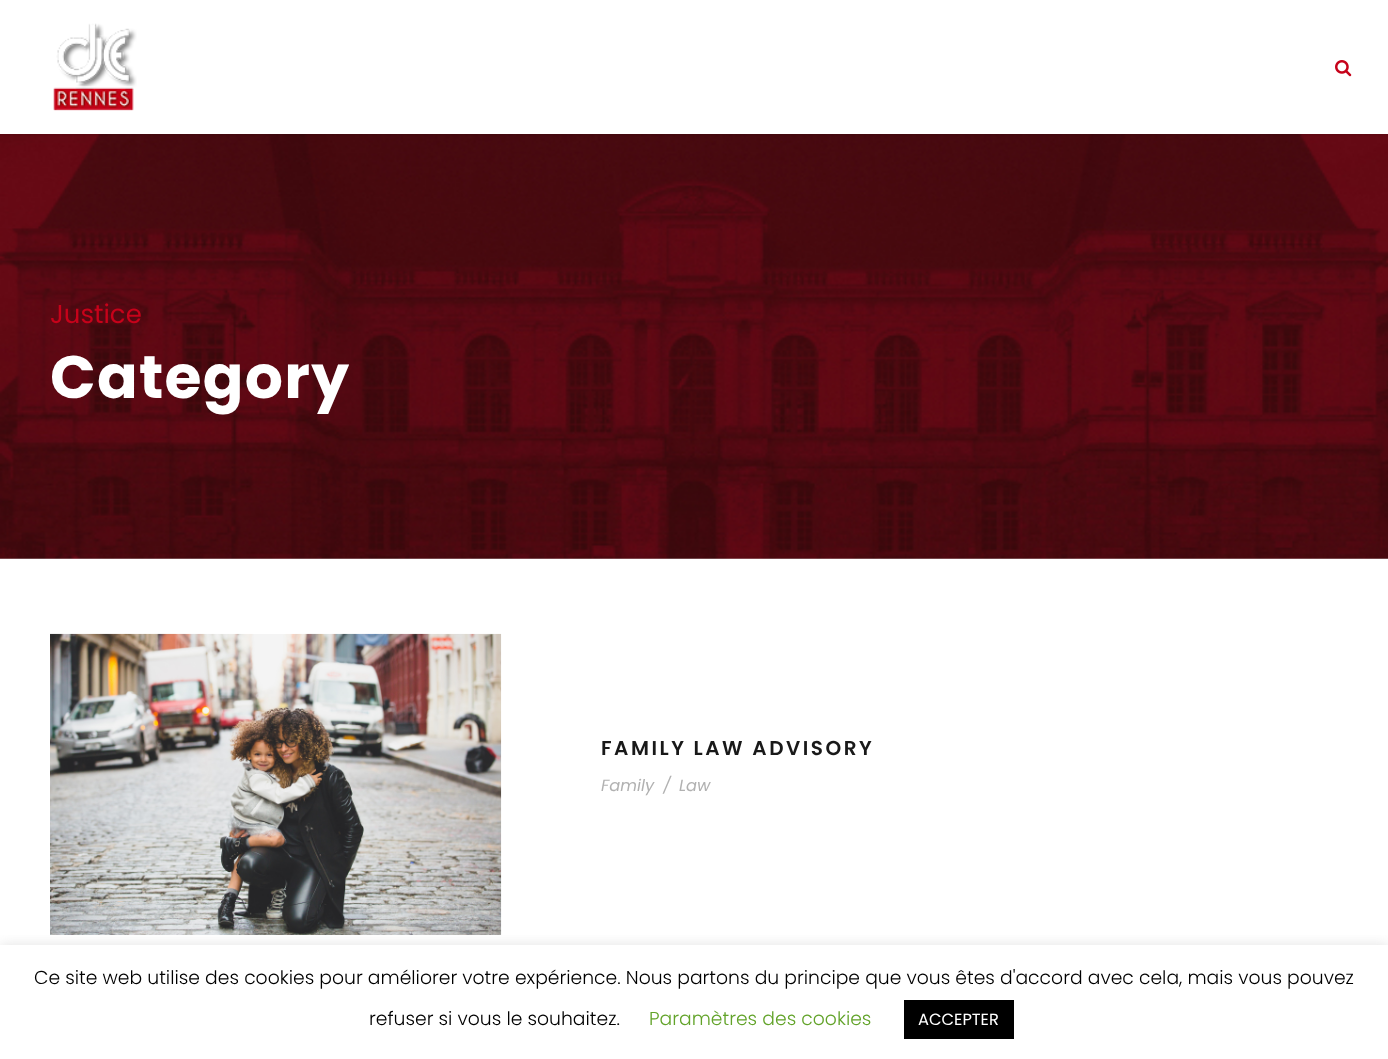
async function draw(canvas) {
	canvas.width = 1388;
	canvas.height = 1059;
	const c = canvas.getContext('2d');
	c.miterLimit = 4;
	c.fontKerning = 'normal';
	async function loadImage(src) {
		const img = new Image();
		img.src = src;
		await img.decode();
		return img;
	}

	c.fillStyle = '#fff';
	c.fillRect(0, 0, 1388, 1059);
	c.drawImage(await loadImage('img3.png'), 0, 134, 1388, 425);
	c.fillStyle = '#0000001a';
	c.filter = 'blur(1px)';
	c.beginPath();
	c.rect(0, 1, 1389, 134);
	c.fill();
	c.filter = 'none';
	c.fillStyle = '#fff';
	c.fillRect(0, 0, 1388, 134);
	c.drawImage(await loadImage('img1.png'), 53, 23, 84, 88);
	c.drawImage(await loadImage('img2.png'), 1335, 60, 17, 17);
	c.font = '26px Poppins';
	c.fillStyle = '#c6021a';
	c.fillText('Justice', 50, 323);
	c.letterSpacing = '1.25px';
	c.font = 'bold 60px Poppins';
	c.fillStyle = '#fff';
	c.fillText('Category', 50, 398);
	c.drawImage(await loadImage('img4.png'), 50, 633, 452, 302);
	c.letterSpacing = '2.5px';
	c.font = '600 20px Poppins';
	c.fillStyle = '#191919';
	c.fillText('FAMILY LAW ADVISORY', 601, 755);
	c.letterSpacing = '0px';
	c.font = 'italic 16.25px Poppins';
	c.fillStyle = '#b1b1b1';
	for (const [text, x, y] of [
		['Family', 601, 791],
		['/', 663, 791],
		['Law', 679, 791],
	]) {
		c.fillText(text, x, y);
	}
	c.save();
	c.beginPath();
	c.rect(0, 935, 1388, 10);
	c.clip();
	c.fillStyle = '#acabab4d';
	c.filter = 'blur(6px)';
	c.beginPath();
	c.rect(0, 944, 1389, 115);
	c.fill();
	c.filter = 'none';
	c.restore();
	c.font = '300 18.75px Poppins';
	c.fillStyle = '#000';
	c.fillText('Ce site web utilise des cookies pour améliorer votre expérience. Nous partons du principe que vous êtes d\'accord avec cela, mais vous pouvez', 34, 984);
	c.fillText('refuser si vous le souhaitez.', 369, 1025);
	c.fillStyle = '#62a329';
	c.fillText('Paramètres des cookies', 649, 1025);
	c.fillStyle = '#000';
	c.fillRect(904, 1000, 110, 39);
	c.font = '16.25px Poppins';
	c.fillStyle = '#fff';
	c.fillText('ACCEPTER', 918, 1025);
}

draw(document.querySelector('canvas'));
